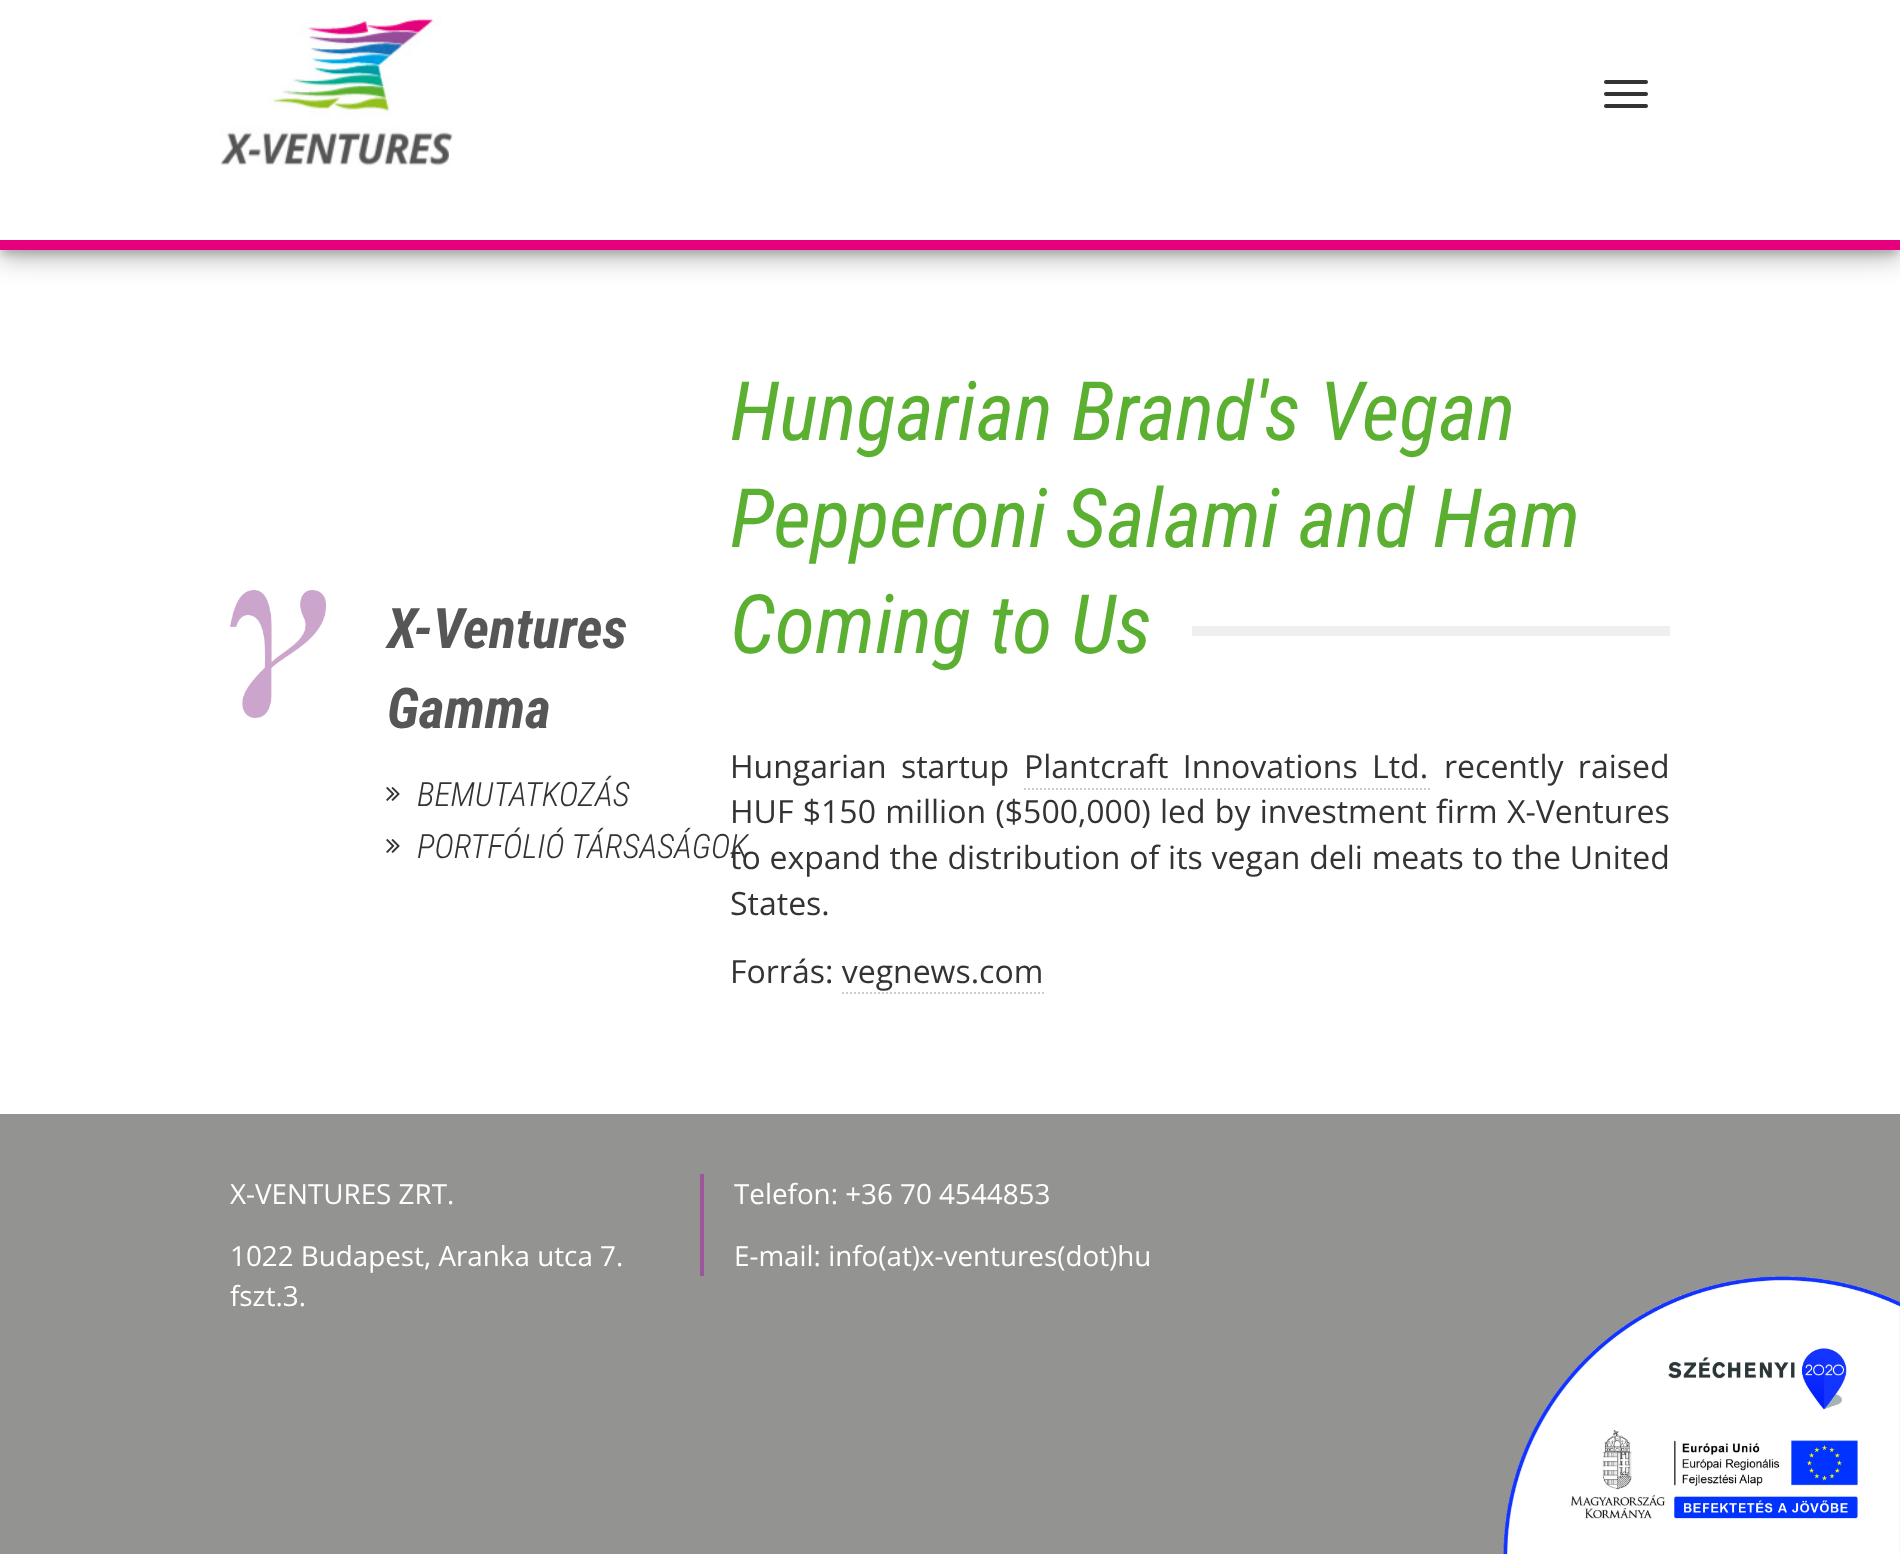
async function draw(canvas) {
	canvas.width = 1900;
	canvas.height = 1554;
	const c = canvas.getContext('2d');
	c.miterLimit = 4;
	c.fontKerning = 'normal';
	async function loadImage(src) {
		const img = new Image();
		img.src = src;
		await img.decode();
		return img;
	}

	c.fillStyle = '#fff';
	c.fillRect(0, 0, 1900, 1554);
	c.fillStyle = '#00000033';
	c.filter = 'blur(5px)';
	c.beginPath();
	c.rect(2, 8, 1896, 246);
	c.fill();
	c.filter = 'none';
	c.fillStyle = '#0000001f';
	c.filter = 'blur(18px)';
	c.beginPath();
	c.rect(0, 2, 1900, 250);
	c.fill();
	c.filter = 'none';
	c.fillStyle = '#00000024';
	c.filter = 'blur(10px)';
	c.beginPath();
	c.rect(0, 12, 1900, 250);
	c.fill();
	c.filter = 'none';
	c.fillStyle = '#fff';
	c.fillRect(0, 0, 1900, 240);
	c.fillStyle = '#e7007e';
	c.fillRect(0, 240, 1900, 10);
	c.drawImage(await loadImage('img1.png'), 220, 15, 233, 151);
	c.fillStyle = '#333';
	c.beginPath();
	c.roundRect(1604, 80, 44, 4, 2);
	c.fill();
	c.beginPath();
	c.roundRect(1604, 92, 44, 4, 2);
	c.fill();
	c.beginPath();
	c.roundRect(1604, 104, 44, 4, 2);
	c.fill();
	c.drawImage(await loadImage('img2.png'), 230, 590, 96, 128);
	c.font = 'italic bold 56px Roboto Condensed';
	c.fillStyle = '#565656';
	c.fillText('X-Ventures', 387, 648);
	c.fillText('Gamma', 387, 728);
	c.drawImage(await loadImage('img3.png'), 386, 787, 14, 14);
	c.font = 'italic 300 33.5px Roboto Condensed';
	c.fillStyle = '#333';
	c.fillText('BEMUTATKOZÁS', 417, 806);
	c.drawImage(await loadImage('img3.png'), 386, 839, 14, 14);
	c.wordSpacing = '0.5px';
	c.font = '32px Open Sans';
	c.fillText('to expand the distribution of its vegan deli meats to the United', 730, 869);
	c.wordSpacing = '0px';
	c.font = 'italic 300 33.5px Roboto Condensed';
	c.fillText('PORTFÓLIÓ TÁRSASÁGOK', 417, 858);
	c.font = 'italic 82px Roboto Condensed';
	c.fillStyle = '#5bb032';
	for (const [text, x, y] of [
		['Hungarian Brand\'s Vegan', 730, 440],
		['Pepperoni Salami and Ham', 730, 547],
		['Coming to Us', 730, 653],
	]) {
		c.fillText(text, x, y);
	}
	c.fillStyle = '#efefef';
	c.fillRect(1192, 626, 478, 10);
	c.wordSpacing = '6px';
	c.font = '32px Open Sans';
	c.fillStyle = '#333';
	c.fillText('Hungarian startup', 730, 778);
	c.fillText('Plantcraft Innovations Ltd.', 1024, 778);
	c.beginPath();
	c.moveTo(1024, 789);
	c.lineTo(1430, 789);
	c.strokeStyle = '#ccc';
	c.lineWidth = 2;
	c.setLineDash([2, 2]);
	c.stroke();
	c.fillText('recently raised', 1444, 778);
	c.wordSpacing = '1px';
	c.fillText('HUF $150 million ($500,000) led by investment firm X-Ventures', 730, 823);
	c.wordSpacing = '0px';
	c.fillText('States.', 730, 915);
	c.fillText('Forrás: vegnews.com', 730, 983);
	c.beginPath();
	c.moveTo(842, 993);
	c.lineTo(1044, 993);
	c.stroke();
	c.fillStyle = '#939391';
	c.fillRect(0, 1114, 1900, 440);
	c.font = '27.8px Open Sans';
	c.fillStyle = '#fff';
	for (const [text, x, y] of [
		['X-VENTURES ZRT.', 230, 1204],
		['1022 Budapest, Aranka utca 7.', 230, 1266],
		['fszt.3.', 230, 1306],
	]) {
		c.fillText(text, x, y);
	}
	c.fillStyle = '#9e569b';
	c.fillRect(700, 1174, 4, 102);
	c.fillStyle = '#fff';
	c.fillText('Telefon: +36 70 4544853', 734, 1204);
	c.fillText('E-mail: info(at)x-ventures(dot)hu', 734, 1266);
	c.drawImage(await loadImage('img4.png'), 1503, 1276, 397, 278);
}

draw(document.querySelector('canvas'));
